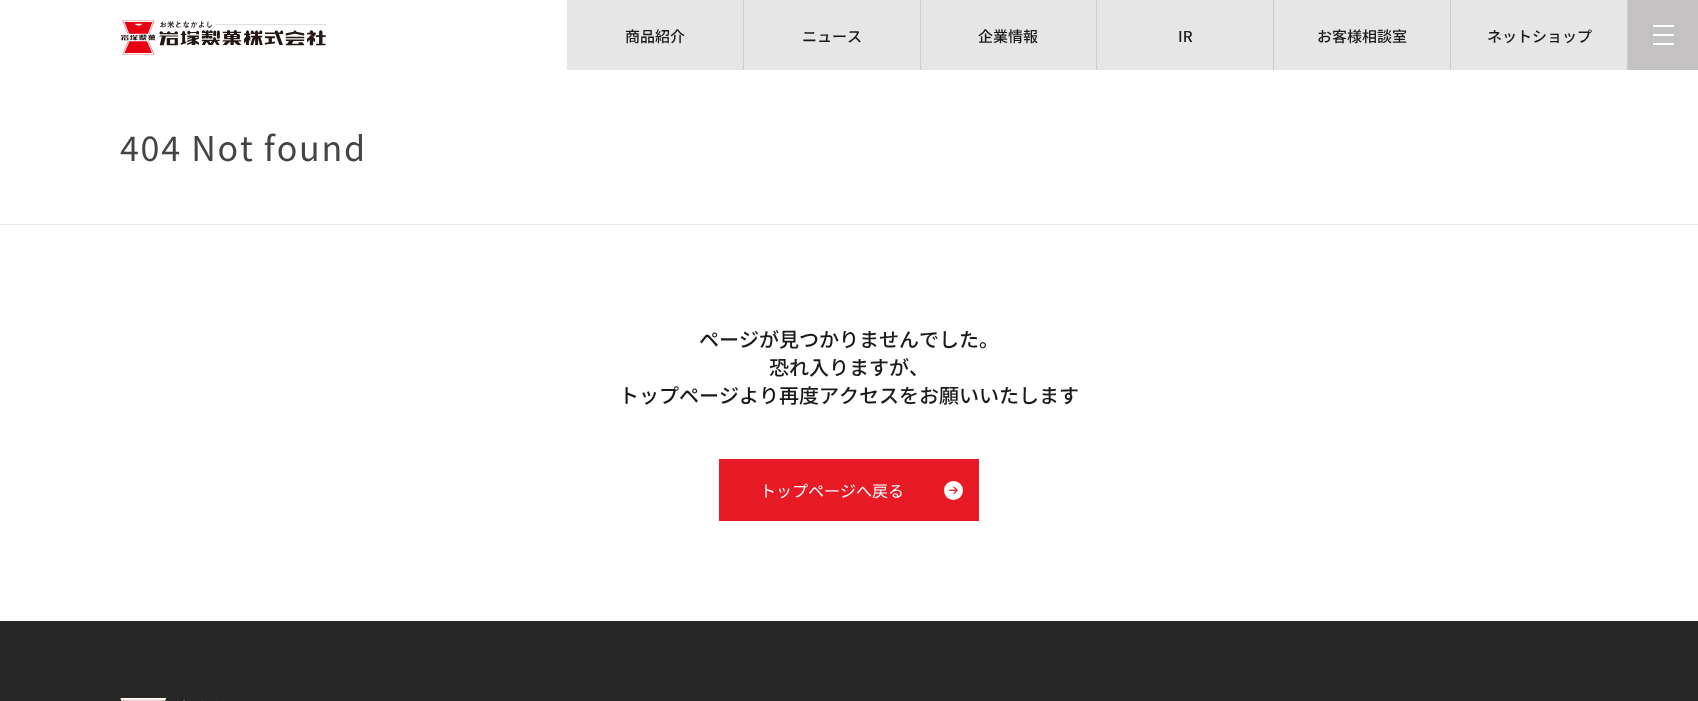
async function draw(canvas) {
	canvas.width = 1698;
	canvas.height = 701;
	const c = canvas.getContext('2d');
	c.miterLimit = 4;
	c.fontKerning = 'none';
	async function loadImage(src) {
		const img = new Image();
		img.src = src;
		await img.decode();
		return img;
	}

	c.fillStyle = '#fff';
	c.fillRect(0, 0, 1698, 701);
	c.drawImage(await loadImage('img1.png'), 121, 20, 205, 35);
	c.fillStyle = '#cbcbcb';
	c.fillRect(743, 0, 1, 70);
	c.fillStyle = '#e6e6e6';
	c.fillRect(567, 0, 176, 70);
	c.font = '500 15px Noto Sans JP';
	c.fillStyle = '#1a1a1a';
	c.fillText('商品紹介', 625, 42);
	c.fillStyle = '#cbcbcb';
	c.fillRect(920, 0, 1, 70);
	c.fillStyle = '#e6e6e6';
	c.fillRect(744, 0, 176, 70);
	c.fillStyle = '#1a1a1a';
	c.fillText('ニュース', 802, 42);
	c.fillStyle = '#cbcbcb';
	c.fillRect(1096, 0, 1, 70);
	c.fillStyle = '#e6e6e6';
	c.fillRect(921, 0, 175, 70);
	c.fillStyle = '#1a1a1a';
	c.fillText('企業情報', 978, 42);
	c.fillStyle = '#cbcbcb';
	c.fillRect(1273, 0, 1, 70);
	c.fillStyle = '#e6e6e6';
	c.fillRect(1097, 0, 176, 70);
	c.fillStyle = '#1a1a1a';
	c.fillText('IR', 1178, 42);
	c.fillStyle = '#cbcbcb';
	c.fillRect(1450, 0, 1, 70);
	c.fillStyle = '#e6e6e6';
	c.fillRect(1274, 0, 176, 70);
	c.fillStyle = '#1a1a1a';
	c.fillText('お客様相談室', 1317, 42);
	c.fillStyle = '#cbcbcb';
	c.fillRect(1627, 0, 1, 70);
	c.fillStyle = '#e6e6e6';
	c.fillRect(1451, 0, 176, 70);
	c.fillStyle = '#1a1a1a';
	c.fillText('ネットショップ', 1487, 42);
	for (const [x, y, w, h, color] of [
		[1628, 0, 70, 70, '#c3c1c1'],
		[1653, 25, 21, 2, '#fff'],
		[1653, 34, 21, 2, '#fff'],
		[1653, 43, 21, 2, '#fff'],
		[0, 224, 1698, 1, '#e8e8e8'],
	]) {
		c.fillStyle = color;
		c.fillRect(x, y, w, h);
	}
	c.letterSpacing = '1.75px';
	c.font = '34px Noto Sans JP';
	c.fillStyle = '#444';
	c.fillText('404 Not found', 120, 161);
	c.letterSpacing = '0px';
	c.font = '500 20px Noto Sans JP';
	c.fillStyle = '#1a1a1a';
	for (const [text, x, y] of [
		['ページが見つかりませんでした。', 699, 347],
		['恐れ入りますが、', 769, 375],
		['トップページより再度アクセスをお願いいたします', 619, 403],
	]) {
		c.fillText(text, x, y);
	}
	c.fillStyle = '#e71a25';
	c.fillRect(719, 459, 260, 62);
	c.font = '16px Noto Sans JP';
	c.fillStyle = '#fff';
	c.fillText('トップページへ戻る', 760, 497);
	c.beginPath();
	c.arc(953.5, 490.5, 9.5, 0, 2 * Math.PI);
	c.fill();
	c.drawImage(await loadImage('img2.png'), 949, 486, 9, 8);
	c.fillStyle = '#272727';
	c.fillRect(0, 621, 1698, 80);
	c.drawImage(await loadImage('img3.png'), 120, 698, 103, 3);
}

draw(document.querySelector('canvas'));
